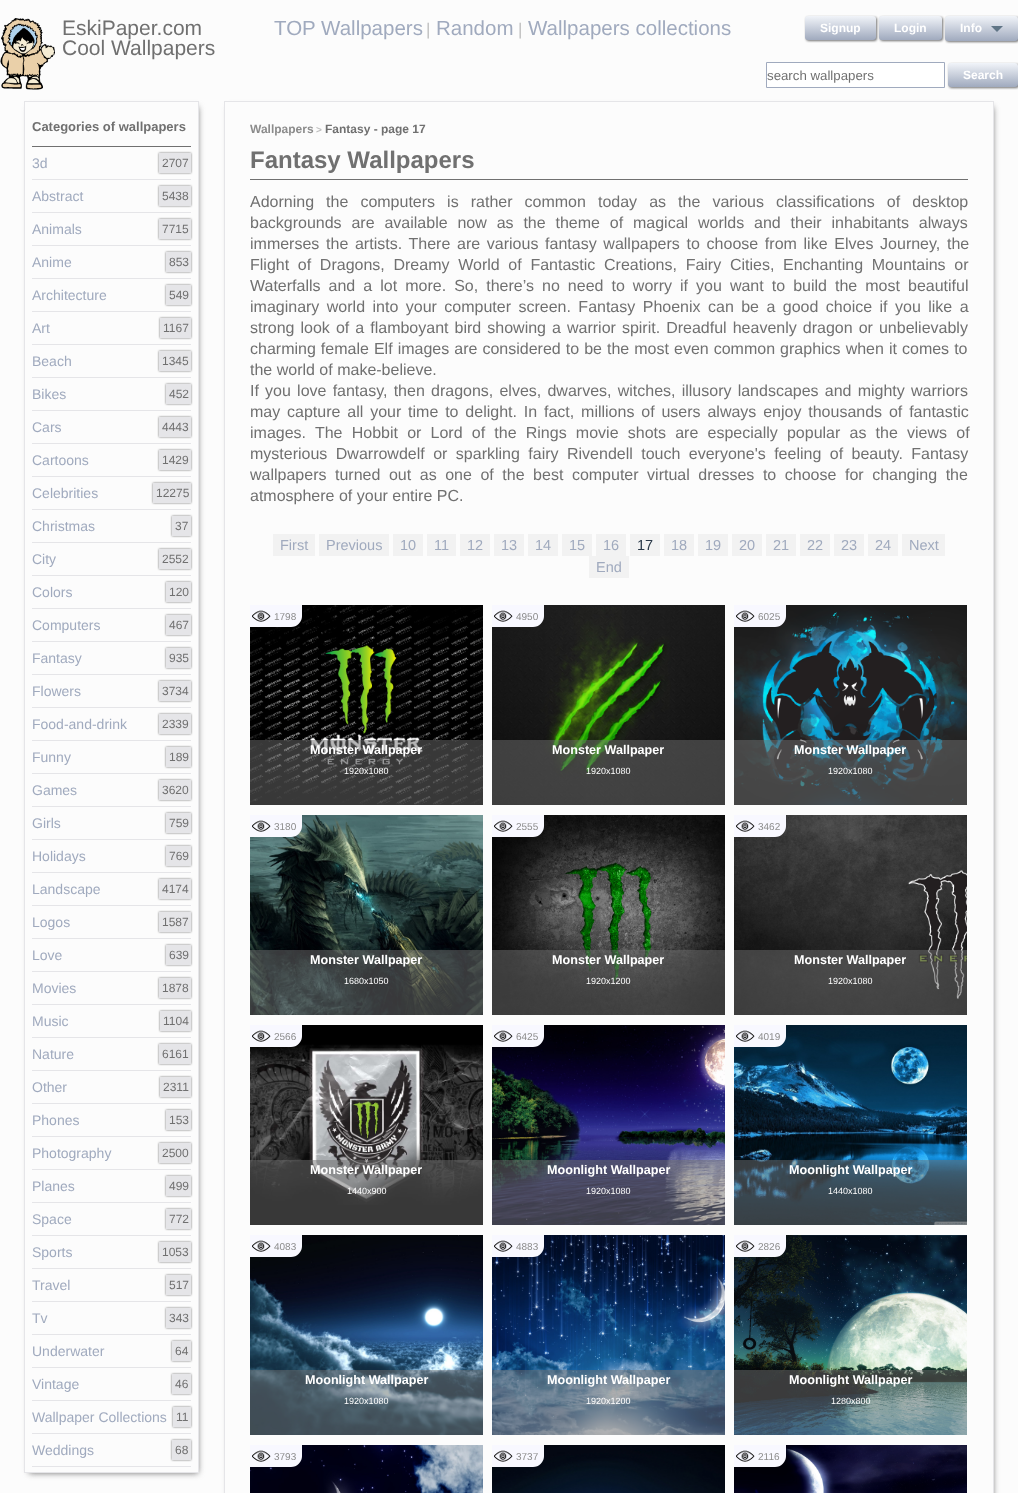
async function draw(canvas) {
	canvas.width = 1018;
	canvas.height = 1493;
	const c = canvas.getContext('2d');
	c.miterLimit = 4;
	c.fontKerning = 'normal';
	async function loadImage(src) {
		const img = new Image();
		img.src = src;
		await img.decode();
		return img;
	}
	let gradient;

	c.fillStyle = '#fcfcfc';
	c.fillRect(0, 0, 1018, 1493);
	c.drawImage(await loadImage('img1.png'), 0, 18, 55, 72);
	c.font = '21px Liberation Sans';
	c.fillStyle = '#707070';
	c.fillText('EskiPaper.com', 62, 35);
	c.fillText('Cool Wallpapers', 62, 55);
	c.font = '20.5px Liberation Sans';
	c.fillStyle = '#a0aabe';
	c.fillText('TOP Wallpapers', 274, 35);
	c.font = '17px Liberation Sans';
	c.fillStyle = '#bfbfbf';
	c.fillText('|', 426, 35);
	c.font = '20.5px Liberation Sans';
	c.fillStyle = '#a0aabe';
	c.fillText('Random', 436, 35);
	c.font = '17px Liberation Sans';
	c.fillStyle = '#bfbfbf';
	c.fillText('|', 518, 35);
	c.font = '20.5px Liberation Sans';
	c.fillStyle = '#a0aabe';
	c.fillText('Wallpapers collections', 528, 35);
	c.fillStyle = '#707070';
	c.filter = 'blur(1px)';
	c.beginPath();
	c.roundRect(806, 17, 71, 24, 3);
	c.fill();
	c.filter = 'none';
	gradient = c.createLinearGradient(841, 40, 841, 16);
	gradient.addColorStop(0, '#a0aabe');
	gradient.addColorStop(1, '#f1f4f9');
	c.fillStyle = gradient;
	c.beginPath();
	c.roundRect(805, 16, 71, 24, 3);
	c.fill();
	c.font = 'bold 12px Liberation Sans';
	c.fillStyle = '#fff';
	c.fillText('Signup', 820, 32);
	c.fillStyle = '#707070';
	c.filter = 'blur(1px)';
	c.beginPath();
	c.roundRect(880, 17, 63, 24, 3);
	c.fill();
	c.filter = 'none';
	gradient = c.createLinearGradient(911, 40, 911, 16);
	gradient.addColorStop(0, '#a0aabe');
	gradient.addColorStop(1, '#f1f4f9');
	c.fillStyle = gradient;
	c.beginPath();
	c.roundRect(879, 16, 63, 24, 3);
	c.fill();
	c.fillStyle = '#fff';
	c.fillText('Login', 894, 32);
	c.fillStyle = '#707070';
	c.filter = 'blur(1px)';
	c.beginPath();
	c.roundRect(946, 17, 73, 25, 3);
	c.fill();
	c.filter = 'none';
	gradient = c.createLinearGradient(982, 41, 982, 16);
	gradient.addColorStop(0, '#a0aabe');
	gradient.addColorStop(1, '#f1f4f9');
	c.fillStyle = gradient;
	c.beginPath();
	c.roundRect(945, 16, 73, 25, 3);
	c.fill();
	c.fillStyle = '#fff';
	c.fillText('Info', 960, 32);
	c.fillStyle = '#607586';
	c.beginPath();
	c.moveTo(991, 26);
	c.lineTo(1003, 26);
	c.lineTo(997, 32);
	c.closePath();
	c.fill();
	c.fillStyle = '#fff';
	c.beginPath();
	c.rect(766.5, 62.5, 178, 25);
	c.fill();
	c.strokeStyle = '#a0aabe';
	c.stroke();
	c.font = '13.25px Liberation Sans';
	c.fillStyle = '#707070';
	c.fillText('search wallpapers', 767, 80);
	c.filter = 'blur(1px)';
	c.beginPath();
	c.roundRect(949, 64, 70, 24, 3);
	c.fill();
	c.filter = 'none';
	gradient = c.createLinearGradient(983, 87, 983, 63);
	gradient.addColorStop(0, '#a0aabe');
	gradient.addColorStop(1, '#f1f4f9');
	c.fillStyle = gradient;
	c.beginPath();
	c.roundRect(948, 63, 70, 24, 3);
	c.fill();
	c.font = 'bold 12px Liberation Sans';
	c.fillStyle = '#fff';
	c.fillText('Search', 963, 79);
	c.save();
	c.beginPath();
	c.moveTo(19, 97);
	c.lineTo(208, 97);
	c.lineTo(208, 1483);
	c.lineTo(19, 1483);
	c.closePath();
	c.moveTo(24, 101);
	c.lineTo(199, 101);
	c.lineTo(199, 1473);
	c.lineTo(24, 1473);
	c.closePath();
	c.clip('evenodd');
	c.fillStyle = '#707070';
	c.filter = 'blur(3px)';
	c.beginPath();
	c.rect(29, 107, 169, 1366);
	c.fill();
	c.filter = 'none';
	c.restore();
	c.strokeStyle = '#e5e5e8';
	c.strokeRect(24.5, 101.5, 174, 1371);
	c.fillStyle = '#707070';
	c.fillRect(32, 146, 159, 1);
	c.font = 'bold 13px Liberation Sans';
	c.fillText('Categories of wallpapers', 32, 131);
	c.fillStyle = '#e5e5e8';
	c.fillRect(32, 179, 159, 1);
	c.font = '14px Liberation Sans';
	c.fillStyle = '#a0aabe';
	c.fillText('3d', 32, 168);
	c.fillStyle = '#707070';
	c.filter = 'blur(1px)';
	c.beginPath();
	c.rect(159, 153, 32, 20);
	c.fill();
	c.filter = 'none';
	c.fillStyle = '#e5e5e8';
	c.fillRect(159, 153, 32, 20);
	c.font = '12px Liberation Sans';
	c.fillStyle = '#707070';
	c.fillText('2707', 162, 167);
	c.fillStyle = '#e5e5e8';
	c.fillRect(32, 212, 159, 1);
	c.font = '14px Liberation Sans';
	c.fillStyle = '#a0aabe';
	c.fillText('Abstract', 32, 201);
	c.fillStyle = '#707070';
	c.filter = 'blur(1px)';
	c.beginPath();
	c.rect(159, 186, 32, 20);
	c.fill();
	c.filter = 'none';
	c.fillStyle = '#e5e5e8';
	c.fillRect(159, 186, 32, 20);
	c.font = '12px Liberation Sans';
	c.fillStyle = '#707070';
	c.fillText('5438', 162, 200);
	c.fillStyle = '#e5e5e8';
	c.fillRect(32, 245, 159, 1);
	c.font = '14px Liberation Sans';
	c.fillStyle = '#a0aabe';
	c.fillText('Animals', 32, 234);
	c.fillStyle = '#707070';
	c.filter = 'blur(1px)';
	c.beginPath();
	c.rect(159, 219, 32, 20);
	c.fill();
	c.filter = 'none';
	c.fillStyle = '#e5e5e8';
	c.fillRect(159, 219, 32, 20);
	c.font = '12px Liberation Sans';
	c.fillStyle = '#707070';
	c.fillText('7715', 162, 233);
	c.fillStyle = '#e5e5e8';
	c.fillRect(32, 278, 159, 1);
	c.font = '14px Liberation Sans';
	c.fillStyle = '#a0aabe';
	c.fillText('Anime', 32, 267);
	c.fillStyle = '#707070';
	c.filter = 'blur(1px)';
	c.beginPath();
	c.rect(166, 252, 25, 20);
	c.fill();
	c.filter = 'none';
	c.fillStyle = '#e5e5e8';
	c.fillRect(166, 252, 25, 20);
	c.font = '12px Liberation Sans';
	c.fillStyle = '#707070';
	c.fillText('853', 169, 266);
	c.fillStyle = '#e5e5e8';
	c.fillRect(32, 311, 159, 1);
	c.font = '14px Liberation Sans';
	c.fillStyle = '#a0aabe';
	c.fillText('Architecture', 32, 300);
	c.fillStyle = '#707070';
	c.filter = 'blur(1px)';
	c.beginPath();
	c.rect(166, 285, 25, 20);
	c.fill();
	c.filter = 'none';
	c.fillStyle = '#e5e5e8';
	c.fillRect(166, 285, 25, 20);
	c.font = '12px Liberation Sans';
	c.fillStyle = '#707070';
	c.fillText('549', 169, 299);
	c.fillStyle = '#e5e5e8';
	c.fillRect(32, 344, 159, 1);
	c.font = '14px Liberation Sans';
	c.fillStyle = '#a0aabe';
	c.fillText('Art', 32, 333);
	c.fillStyle = '#707070';
	c.filter = 'blur(1px)';
	c.beginPath();
	c.rect(160, 318, 31, 20);
	c.fill();
	c.filter = 'none';
	c.fillStyle = '#e5e5e8';
	c.fillRect(160, 318, 31, 20);
	c.font = '12px Liberation Sans';
	c.fillStyle = '#707070';
	c.fillText('1167', 163, 332);
	c.fillStyle = '#e5e5e8';
	c.fillRect(32, 377, 159, 1);
	c.font = '14px Liberation Sans';
	c.fillStyle = '#a0aabe';
	c.fillText('Beach', 32, 366);
	c.fillStyle = '#707070';
	c.filter = 'blur(1px)';
	c.beginPath();
	c.rect(159, 351, 32, 20);
	c.fill();
	c.filter = 'none';
	c.fillStyle = '#e5e5e8';
	c.fillRect(159, 351, 32, 20);
	c.font = '12px Liberation Sans';
	c.fillStyle = '#707070';
	c.fillText('1345', 162, 365);
	c.fillStyle = '#e5e5e8';
	c.fillRect(32, 410, 159, 1);
	c.font = '14px Liberation Sans';
	c.fillStyle = '#a0aabe';
	c.fillText('Bikes', 32, 399);
	c.fillStyle = '#707070';
	c.filter = 'blur(1px)';
	c.beginPath();
	c.rect(166, 384, 25, 20);
	c.fill();
	c.filter = 'none';
	c.fillStyle = '#e5e5e8';
	c.fillRect(166, 384, 25, 20);
	c.font = '12px Liberation Sans';
	c.fillStyle = '#707070';
	c.fillText('452', 169, 398);
	c.fillStyle = '#e5e5e8';
	c.fillRect(32, 443, 159, 1);
	c.font = '14px Liberation Sans';
	c.fillStyle = '#a0aabe';
	c.fillText('Cars', 32, 432);
	c.fillStyle = '#707070';
	c.filter = 'blur(1px)';
	c.beginPath();
	c.rect(159, 417, 32, 20);
	c.fill();
	c.filter = 'none';
	c.fillStyle = '#e5e5e8';
	c.fillRect(159, 417, 32, 20);
	c.font = '12px Liberation Sans';
	c.fillStyle = '#707070';
	c.fillText('4443', 162, 431);
	c.fillStyle = '#e5e5e8';
	c.fillRect(32, 476, 159, 1);
	c.font = '14px Liberation Sans';
	c.fillStyle = '#a0aabe';
	c.fillText('Cartoons', 32, 465);
	c.fillStyle = '#707070';
	c.filter = 'blur(1px)';
	c.beginPath();
	c.rect(159, 450, 32, 20);
	c.fill();
	c.filter = 'none';
	c.fillStyle = '#e5e5e8';
	c.fillRect(159, 450, 32, 20);
	c.font = '12px Liberation Sans';
	c.fillStyle = '#707070';
	c.fillText('1429', 162, 464);
	c.fillStyle = '#e5e5e8';
	c.fillRect(32, 509, 159, 1);
	c.font = '14px Liberation Sans';
	c.fillStyle = '#a0aabe';
	c.fillText('Celebrities', 32, 498);
	c.fillStyle = '#707070';
	c.filter = 'blur(1px)';
	c.beginPath();
	c.rect(153, 483, 38, 20);
	c.fill();
	c.filter = 'none';
	c.fillStyle = '#e5e5e8';
	c.fillRect(153, 483, 38, 20);
	c.font = '12px Liberation Sans';
	c.fillStyle = '#707070';
	c.fillText('12275', 156, 497);
	c.fillStyle = '#e5e5e8';
	c.fillRect(32, 542, 159, 1);
	c.font = '14px Liberation Sans';
	c.fillStyle = '#a0aabe';
	c.fillText('Christmas', 32, 531);
	c.fillStyle = '#707070';
	c.filter = 'blur(1px)';
	c.beginPath();
	c.rect(172, 516, 19, 20);
	c.fill();
	c.filter = 'none';
	c.fillStyle = '#e5e5e8';
	c.fillRect(172, 516, 19, 20);
	c.font = '12px Liberation Sans';
	c.fillStyle = '#707070';
	c.fillText('37', 175, 530);
	c.fillStyle = '#e5e5e8';
	c.fillRect(32, 575, 159, 1);
	c.font = '14px Liberation Sans';
	c.fillStyle = '#a0aabe';
	c.fillText('City', 32, 564);
	c.fillStyle = '#707070';
	c.filter = 'blur(1px)';
	c.beginPath();
	c.rect(159, 549, 32, 20);
	c.fill();
	c.filter = 'none';
	c.fillStyle = '#e5e5e8';
	c.fillRect(159, 549, 32, 20);
	c.font = '12px Liberation Sans';
	c.fillStyle = '#707070';
	c.fillText('2552', 162, 563);
	c.fillStyle = '#e5e5e8';
	c.fillRect(32, 608, 159, 1);
	c.font = '14px Liberation Sans';
	c.fillStyle = '#a0aabe';
	c.fillText('Colors', 32, 597);
	c.fillStyle = '#707070';
	c.filter = 'blur(1px)';
	c.beginPath();
	c.rect(166, 582, 25, 20);
	c.fill();
	c.filter = 'none';
	c.fillStyle = '#e5e5e8';
	c.fillRect(166, 582, 25, 20);
	c.font = '12px Liberation Sans';
	c.fillStyle = '#707070';
	c.fillText('120', 169, 596);
	c.fillStyle = '#e5e5e8';
	c.fillRect(32, 641, 159, 1);
	c.font = '14px Liberation Sans';
	c.fillStyle = '#a0aabe';
	c.fillText('Computers', 32, 630);
	c.fillStyle = '#707070';
	c.filter = 'blur(1px)';
	c.beginPath();
	c.rect(166, 615, 25, 20);
	c.fill();
	c.filter = 'none';
	c.fillStyle = '#e5e5e8';
	c.fillRect(166, 615, 25, 20);
	c.font = '12px Liberation Sans';
	c.fillStyle = '#707070';
	c.fillText('467', 169, 629);
	c.fillStyle = '#e5e5e8';
	c.fillRect(32, 674, 159, 1);
	c.font = '14px Liberation Sans';
	c.fillStyle = '#a0aabe';
	c.fillText('Fantasy', 32, 663);
	c.fillStyle = '#707070';
	c.filter = 'blur(1px)';
	c.beginPath();
	c.rect(166, 648, 25, 20);
	c.fill();
	c.filter = 'none';
	c.fillStyle = '#e5e5e8';
	c.fillRect(166, 648, 25, 20);
	c.font = '12px Liberation Sans';
	c.fillStyle = '#707070';
	c.fillText('935', 169, 662);
	c.fillStyle = '#e5e5e8';
	c.fillRect(32, 707, 159, 1);
	c.font = '14px Liberation Sans';
	c.fillStyle = '#a0aabe';
	c.fillText('Flowers', 32, 696);
	c.fillStyle = '#707070';
	c.filter = 'blur(1px)';
	c.beginPath();
	c.rect(159, 681, 32, 20);
	c.fill();
	c.filter = 'none';
	c.fillStyle = '#e5e5e8';
	c.fillRect(159, 681, 32, 20);
	c.font = '12px Liberation Sans';
	c.fillStyle = '#707070';
	c.fillText('3734', 162, 695);
	c.fillStyle = '#e5e5e8';
	c.fillRect(32, 740, 159, 1);
	c.font = '14px Liberation Sans';
	c.fillStyle = '#a0aabe';
	c.fillText('Food-and-drink', 32, 729);
	c.fillStyle = '#707070';
	c.filter = 'blur(1px)';
	c.beginPath();
	c.rect(159, 714, 32, 20);
	c.fill();
	c.filter = 'none';
	c.fillStyle = '#e5e5e8';
	c.fillRect(159, 714, 32, 20);
	c.font = '12px Liberation Sans';
	c.fillStyle = '#707070';
	c.fillText('2339', 162, 728);
	c.fillStyle = '#e5e5e8';
	c.fillRect(32, 773, 159, 1);
	c.font = '14px Liberation Sans';
	c.fillStyle = '#a0aabe';
	c.fillText('Funny', 32, 762);
	c.fillStyle = '#707070';
	c.filter = 'blur(1px)';
	c.beginPath();
	c.rect(166, 747, 25, 20);
	c.fill();
	c.filter = 'none';
	c.fillStyle = '#e5e5e8';
	c.fillRect(166, 747, 25, 20);
	c.font = '12px Liberation Sans';
	c.fillStyle = '#707070';
	c.fillText('189', 169, 761);
	c.fillStyle = '#e5e5e8';
	c.fillRect(32, 806, 159, 1);
	c.font = '14px Liberation Sans';
	c.fillStyle = '#a0aabe';
	c.fillText('Games', 32, 795);
	c.fillStyle = '#707070';
	c.filter = 'blur(1px)';
	c.beginPath();
	c.rect(159, 780, 32, 20);
	c.fill();
	c.filter = 'none';
	c.fillStyle = '#e5e5e8';
	c.fillRect(159, 780, 32, 20);
	c.font = '12px Liberation Sans';
	c.fillStyle = '#707070';
	c.fillText('3620', 162, 794);
	c.fillStyle = '#e5e5e8';
	c.fillRect(32, 839, 159, 1);
	c.font = '14px Liberation Sans';
	c.fillStyle = '#a0aabe';
	c.fillText('Girls', 32, 828);
	c.fillStyle = '#707070';
	c.filter = 'blur(1px)';
	c.beginPath();
	c.rect(166, 813, 25, 20);
	c.fill();
	c.filter = 'none';
	c.fillStyle = '#e5e5e8';
	c.fillRect(166, 813, 25, 20);
	c.font = '12px Liberation Sans';
	c.fillStyle = '#707070';
	c.fillText('759', 169, 827);
	c.fillStyle = '#e5e5e8';
	c.fillRect(32, 872, 159, 1);
	c.font = '14px Liberation Sans';
	c.fillStyle = '#a0aabe';
	c.fillText('Holidays', 32, 861);
	c.fillStyle = '#707070';
	c.filter = 'blur(1px)';
	c.beginPath();
	c.rect(166, 846, 25, 20);
	c.fill();
	c.filter = 'none';
	c.fillStyle = '#e5e5e8';
	c.fillRect(166, 846, 25, 20);
	c.font = '12px Liberation Sans';
	c.fillStyle = '#707070';
	c.fillText('769', 169, 860);
	c.fillStyle = '#e5e5e8';
	c.fillRect(32, 905, 159, 1);
	c.font = '14px Liberation Sans';
	c.fillStyle = '#a0aabe';
	c.fillText('Landscape', 32, 894);
	c.fillStyle = '#707070';
	c.filter = 'blur(1px)';
	c.beginPath();
	c.rect(159, 879, 32, 20);
	c.fill();
	c.filter = 'none';
	c.fillStyle = '#e5e5e8';
	c.fillRect(159, 879, 32, 20);
	c.font = '12px Liberation Sans';
	c.fillStyle = '#707070';
	c.fillText('4174', 162, 893);
	c.fillStyle = '#e5e5e8';
	c.fillRect(32, 938, 159, 1);
	c.font = '14px Liberation Sans';
	c.fillStyle = '#a0aabe';
	c.fillText('Logos', 32, 927);
	c.fillStyle = '#707070';
	c.filter = 'blur(1px)';
	c.beginPath();
	c.rect(159, 912, 32, 20);
	c.fill();
	c.filter = 'none';
	c.fillStyle = '#e5e5e8';
	c.fillRect(159, 912, 32, 20);
	c.font = '12px Liberation Sans';
	c.fillStyle = '#707070';
	c.fillText('1587', 162, 926);
	c.fillStyle = '#e5e5e8';
	c.fillRect(32, 971, 159, 1);
	c.font = '14px Liberation Sans';
	c.fillStyle = '#a0aabe';
	c.fillText('Love', 32, 960);
	c.fillStyle = '#707070';
	c.filter = 'blur(1px)';
	c.beginPath();
	c.rect(166, 945, 25, 20);
	c.fill();
	c.filter = 'none';
	c.fillStyle = '#e5e5e8';
	c.fillRect(166, 945, 25, 20);
	c.font = '12px Liberation Sans';
	c.fillStyle = '#707070';
	c.fillText('639', 169, 959);
	c.fillStyle = '#e5e5e8';
	c.fillRect(32, 1004, 159, 1);
	c.font = '14px Liberation Sans';
	c.fillStyle = '#a0aabe';
	c.fillText('Movies', 32, 993);
	c.fillStyle = '#707070';
	c.filter = 'blur(1px)';
	c.beginPath();
	c.rect(159, 978, 32, 20);
	c.fill();
	c.filter = 'none';
	c.fillStyle = '#e5e5e8';
	c.fillRect(159, 978, 32, 20);
	c.font = '12px Liberation Sans';
	c.fillStyle = '#707070';
	c.fillText('1878', 162, 992);
	c.fillStyle = '#e5e5e8';
	c.fillRect(32, 1037, 159, 1);
	c.font = '14px Liberation Sans';
	c.fillStyle = '#a0aabe';
	c.fillText('Music', 32, 1026);
	c.fillStyle = '#707070';
	c.filter = 'blur(1px)';
	c.beginPath();
	c.rect(160, 1011, 31, 20);
	c.fill();
	c.filter = 'none';
	c.fillStyle = '#e5e5e8';
	c.fillRect(160, 1011, 31, 20);
	c.font = '12px Liberation Sans';
	c.fillStyle = '#707070';
	c.fillText('1104', 163, 1025);
	c.fillStyle = '#e5e5e8';
	c.fillRect(32, 1070, 159, 1);
	c.font = '14px Liberation Sans';
	c.fillStyle = '#a0aabe';
	c.fillText('Nature', 32, 1059);
	c.fillStyle = '#707070';
	c.filter = 'blur(1px)';
	c.beginPath();
	c.rect(159, 1044, 32, 20);
	c.fill();
	c.filter = 'none';
	c.fillStyle = '#e5e5e8';
	c.fillRect(159, 1044, 32, 20);
	c.font = '12px Liberation Sans';
	c.fillStyle = '#707070';
	c.fillText('6161', 162, 1058);
	c.fillStyle = '#e5e5e8';
	c.fillRect(32, 1103, 159, 1);
	c.font = '14px Liberation Sans';
	c.fillStyle = '#a0aabe';
	c.fillText('Other', 32, 1092);
	c.fillStyle = '#707070';
	c.filter = 'blur(1px)';
	c.beginPath();
	c.rect(160, 1077, 31, 20);
	c.fill();
	c.filter = 'none';
	c.fillStyle = '#e5e5e8';
	c.fillRect(160, 1077, 31, 20);
	c.font = '12px Liberation Sans';
	c.fillStyle = '#707070';
	c.fillText('2311', 163, 1091);
	c.fillStyle = '#e5e5e8';
	c.fillRect(32, 1136, 159, 1);
	c.font = '14px Liberation Sans';
	c.fillStyle = '#a0aabe';
	c.fillText('Phones', 32, 1125);
	c.fillStyle = '#707070';
	c.filter = 'blur(1px)';
	c.beginPath();
	c.rect(166, 1110, 25, 20);
	c.fill();
	c.filter = 'none';
	c.fillStyle = '#e5e5e8';
	c.fillRect(166, 1110, 25, 20);
	c.font = '12px Liberation Sans';
	c.fillStyle = '#707070';
	c.fillText('153', 169, 1124);
	c.fillStyle = '#e5e5e8';
	c.fillRect(32, 1169, 159, 1);
	c.font = '14px Liberation Sans';
	c.fillStyle = '#a0aabe';
	c.fillText('Photography', 32, 1158);
	c.fillStyle = '#707070';
	c.filter = 'blur(1px)';
	c.beginPath();
	c.rect(159, 1143, 32, 20);
	c.fill();
	c.filter = 'none';
	c.fillStyle = '#e5e5e8';
	c.fillRect(159, 1143, 32, 20);
	c.font = '12px Liberation Sans';
	c.fillStyle = '#707070';
	c.fillText('2500', 162, 1157);
	c.fillStyle = '#e5e5e8';
	c.fillRect(32, 1202, 159, 1);
	c.font = '14px Liberation Sans';
	c.fillStyle = '#a0aabe';
	c.fillText('Planes', 32, 1191);
	c.fillStyle = '#707070';
	c.filter = 'blur(1px)';
	c.beginPath();
	c.rect(166, 1176, 25, 20);
	c.fill();
	c.filter = 'none';
	c.fillStyle = '#e5e5e8';
	c.fillRect(166, 1176, 25, 20);
	c.font = '12px Liberation Sans';
	c.fillStyle = '#707070';
	c.fillText('499', 169, 1190);
	c.fillStyle = '#e5e5e8';
	c.fillRect(32, 1235, 159, 1);
	c.font = '14px Liberation Sans';
	c.fillStyle = '#a0aabe';
	c.fillText('Space', 32, 1224);
	c.fillStyle = '#707070';
	c.filter = 'blur(1px)';
	c.beginPath();
	c.rect(166, 1209, 25, 20);
	c.fill();
	c.filter = 'none';
	c.fillStyle = '#e5e5e8';
	c.fillRect(166, 1209, 25, 20);
	c.font = '12px Liberation Sans';
	c.fillStyle = '#707070';
	c.fillText('772', 169, 1223);
	c.fillStyle = '#e5e5e8';
	c.fillRect(32, 1268, 159, 1);
	c.font = '14px Liberation Sans';
	c.fillStyle = '#a0aabe';
	c.fillText('Sports', 32, 1257);
	c.fillStyle = '#707070';
	c.filter = 'blur(1px)';
	c.beginPath();
	c.rect(159, 1242, 32, 20);
	c.fill();
	c.filter = 'none';
	c.fillStyle = '#e5e5e8';
	c.fillRect(159, 1242, 32, 20);
	c.font = '12px Liberation Sans';
	c.fillStyle = '#707070';
	c.fillText('1053', 162, 1256);
	c.fillStyle = '#e5e5e8';
	c.fillRect(32, 1301, 159, 1);
	c.font = '14px Liberation Sans';
	c.fillStyle = '#a0aabe';
	c.fillText('Travel', 32, 1290);
	c.fillStyle = '#707070';
	c.filter = 'blur(1px)';
	c.beginPath();
	c.rect(166, 1275, 25, 20);
	c.fill();
	c.filter = 'none';
	c.fillStyle = '#e5e5e8';
	c.fillRect(166, 1275, 25, 20);
	c.font = '12px Liberation Sans';
	c.fillStyle = '#707070';
	c.fillText('517', 169, 1289);
	c.fillStyle = '#e5e5e8';
	c.fillRect(32, 1334, 159, 1);
	c.font = '14px Liberation Sans';
	c.fillStyle = '#a0aabe';
	c.fillText('Tv', 32, 1323);
	c.fillStyle = '#707070';
	c.filter = 'blur(1px)';
	c.beginPath();
	c.rect(166, 1308, 25, 20);
	c.fill();
	c.filter = 'none';
	c.fillStyle = '#e5e5e8';
	c.fillRect(166, 1308, 25, 20);
	c.font = '12px Liberation Sans';
	c.fillStyle = '#707070';
	c.fillText('343', 169, 1322);
	c.fillStyle = '#e5e5e8';
	c.fillRect(32, 1367, 159, 1);
	c.font = '14px Liberation Sans';
	c.fillStyle = '#a0aabe';
	c.fillText('Underwater', 32, 1356);
	c.fillStyle = '#707070';
	c.filter = 'blur(1px)';
	c.beginPath();
	c.rect(172, 1341, 19, 20);
	c.fill();
	c.filter = 'none';
	c.fillStyle = '#e5e5e8';
	c.fillRect(172, 1341, 19, 20);
	c.font = '12px Liberation Sans';
	c.fillStyle = '#707070';
	c.fillText('64', 175, 1355);
	c.fillStyle = '#e5e5e8';
	c.fillRect(32, 1400, 159, 1);
	c.font = '14px Liberation Sans';
	c.fillStyle = '#a0aabe';
	c.fillText('Vintage', 32, 1389);
	c.fillStyle = '#707070';
	c.filter = 'blur(1px)';
	c.beginPath();
	c.rect(172, 1374, 19, 20);
	c.fill();
	c.filter = 'none';
	c.fillStyle = '#e5e5e8';
	c.fillRect(172, 1374, 19, 20);
	c.font = '12px Liberation Sans';
	c.fillStyle = '#707070';
	c.fillText('46', 175, 1388);
	c.fillStyle = '#e5e5e8';
	c.fillRect(32, 1433, 159, 1);
	c.font = '14px Liberation Sans';
	c.fillStyle = '#a0aabe';
	c.fillText('Wallpaper Collections', 32, 1422);
	c.fillStyle = '#707070';
	c.filter = 'blur(1px)';
	c.beginPath();
	c.rect(173, 1407, 18, 20);
	c.fill();
	c.filter = 'none';
	c.fillStyle = '#e5e5e8';
	c.fillRect(173, 1407, 18, 20);
	c.font = '12px Liberation Sans';
	c.fillStyle = '#707070';
	c.fillText('11', 176, 1421);
	c.fillStyle = '#e5e5e8';
	c.fillRect(32, 1466, 159, 1);
	c.font = '14px Liberation Sans';
	c.fillStyle = '#a0aabe';
	c.fillText('Weddings', 32, 1455);
	c.fillStyle = '#707070';
	c.filter = 'blur(1px)';
	c.beginPath();
	c.rect(172, 1440, 19, 20);
	c.fill();
	c.filter = 'none';
	c.fillStyle = '#e5e5e8';
	c.fillRect(172, 1440, 19, 20);
	c.font = '12px Liberation Sans';
	c.fillStyle = '#707070';
	c.fillText('68', 175, 1454);
	c.save();
	c.beginPath();
	c.moveTo(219, 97);
	c.lineTo(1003, 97);
	c.lineTo(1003, 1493);
	c.lineTo(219, 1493);
	c.closePath();
	c.moveTo(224, 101);
	c.lineTo(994, 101);
	c.lineTo(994, 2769);
	c.lineTo(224, 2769);
	c.closePath();
	c.clip('evenodd');
	c.filter = 'blur(3px)';
	c.beginPath();
	c.rect(229, 107, 764, 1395);
	c.fill();
	c.filter = 'none';
	c.restore();
	c.strokeRect(224.5, 101.5, 769, 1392);
	c.font = 'bold 12px Liberation Sans';
	c.fillStyle = '#8c8c8c';
	c.fillText('Wallpapers', 250, 133);
	c.font = 'bold 10px Liberation Sans';
	c.fillStyle = '#bfbfbf';
	c.fillText('>', 316, 133);
	c.font = 'bold 12px Liberation Sans';
	c.fillStyle = '#707070';
	c.fillText('Fantasy - page 17', 325, 133);
	c.fillRect(250, 179, 718, 1);
	c.font = 'bold 24px Liberation Sans';
	c.fillText('Fantasy Wallpapers', 250, 168);
	c.wordSpacing = '7.6px';
	c.font = '16px Liberation Sans';
	c.fillText('Adorning the computers is rather common today as the various classifications of desktop', 250, 207);
	c.wordSpacing = '5.4px';
	c.fillText('backgrounds are available now as the theme of magical worlds and their inhabitants always', 250, 228);
	c.wordSpacing = '2.25px';
	c.fillText('immerses the artists. There are various fantasy wallpapers to choose from like Elves Journey, the', 250, 249);
	c.wordSpacing = '4.25px';
	c.fillText('Flight of Dragons, Dreamy World of Fantastic Creations, Fairy Cities, Enchanting Mountains or', 250, 270);
	c.wordSpacing = '3.6px';
	c.fillText('Waterfalls and a lot more. So, there’s no need to worry if you want to build the most beautiful', 250, 291);
	c.wordSpacing = '3px';
	c.fillText('imaginary world into your computer screen. Fantasy Phoenix can be a good choice if you like a', 250, 312);
	c.wordSpacing = '1.6px';
	c.fillText('strong look of a flamboyant bird showing a warrior spirit. Dreadful heavenly dragon or unbelievably', 250, 333);
	c.wordSpacing = '0.6px';
	c.fillText('charming female Elf images are considered to be the most even common graphics when it comes to', 250, 354);
	c.wordSpacing = '0px';
	c.fillText('the world of make-believe.', 250, 375);
	c.wordSpacing = '1.75px';
	c.fillText('If you love fantasy, then dragons, elves, dwarves, witches, illusory landscapes and mighty warriors', 250, 396);
	c.wordSpacing = '2.4px';
	c.fillText('may capture all your time to delight. In fact, millions of users always enjoy thousands of fantastic', 250, 417);
	c.wordSpacing = '4.75px';
	c.fillText('images. The Hobbit or Lord of the Rings movie shots are especially popular as the views of', 250, 438);
	c.wordSpacing = '4px';
	c.fillText('mysterious Dwarrowdelf or sparkling fairy Rivendell touch everyone\'s feeling of beauty. Fantasy', 250, 459);
	c.wordSpacing = '4.1px';
	c.fillText('wallpapers turned out as one of the best computer virtual dresses to choose for changing the', 250, 480);
	c.wordSpacing = '0px';
	c.fillText('atmosphere of your entire PC.', 250, 501);
	c.fillStyle = '#f2f2f2';
	c.fillRect(273, 534, 42, 22);
	c.font = '14.5px Liberation Sans';
	c.fillStyle = '#a0aabe';
	c.fillText('First', 280, 550);
	c.fillStyle = '#f2f2f2';
	c.fillRect(319, 534, 70, 22);
	c.fillStyle = '#a0aabe';
	c.fillText('Previous', 326, 550);
	c.fillStyle = '#f2f2f2';
	c.fillRect(393, 534, 30, 22);
	c.fillStyle = '#a0aabe';
	c.fillText('10', 400, 550);
	c.fillStyle = '#f2f2f2';
	c.fillRect(427, 534, 29, 22);
	c.fillStyle = '#a0aabe';
	c.fillText('11', 434, 550);
	c.fillStyle = '#f2f2f2';
	c.fillRect(460, 534, 30, 22);
	c.fillStyle = '#a0aabe';
	c.fillText('12', 467, 550);
	c.fillStyle = '#f2f2f2';
	c.fillRect(494, 534, 30, 22);
	c.fillStyle = '#a0aabe';
	c.fillText('13', 501, 550);
	c.fillStyle = '#f2f2f2';
	c.fillRect(528, 534, 30, 22);
	c.fillStyle = '#a0aabe';
	c.fillText('14', 535, 550);
	c.fillStyle = '#f2f2f2';
	c.fillRect(562, 534, 30, 22);
	c.fillStyle = '#a0aabe';
	c.fillText('15', 569, 550);
	c.fillStyle = '#f2f2f2';
	c.fillRect(596, 534, 30, 22);
	c.fillStyle = '#a0aabe';
	c.fillText('16', 603, 550);
	c.fillStyle = '#f2f2f2';
	c.fillRect(630, 534, 30, 22);
	c.fillStyle = '#293848';
	c.fillText('17', 637, 550);
	c.fillStyle = '#f2f2f2';
	c.fillRect(664, 534, 30, 22);
	c.fillStyle = '#a0aabe';
	c.fillText('18', 671, 550);
	c.fillStyle = '#f2f2f2';
	c.fillRect(698, 534, 30, 22);
	c.fillStyle = '#a0aabe';
	c.fillText('19', 705, 550);
	c.fillStyle = '#f2f2f2';
	c.fillRect(732, 534, 30, 22);
	c.fillStyle = '#a0aabe';
	c.fillText('20', 739, 550);
	c.fillStyle = '#f2f2f2';
	c.fillRect(766, 534, 30, 22);
	c.fillStyle = '#a0aabe';
	c.fillText('21', 773, 550);
	c.fillStyle = '#f2f2f2';
	c.fillRect(800, 534, 30, 22);
	c.fillStyle = '#a0aabe';
	c.fillText('22', 807, 550);
	c.fillStyle = '#f2f2f2';
	c.fillRect(834, 534, 30, 22);
	c.fillStyle = '#a0aabe';
	c.fillText('23', 841, 550);
	c.fillStyle = '#f2f2f2';
	c.fillRect(868, 534, 30, 22);
	c.fillStyle = '#a0aabe';
	c.fillText('24', 875, 550);
	c.fillStyle = '#f2f2f2';
	c.fillRect(902, 534, 43, 22);
	c.fillStyle = '#a0aabe';
	c.fillText('Next', 909, 550);
	c.fillStyle = '#f2f2f2';
	c.fillRect(589, 556, 40, 22);
	c.fillStyle = '#a0aabe';
	c.fillText('End', 596, 572);
	c.drawImage(await loadImage('img2.png'), 250, 605, 233, 200);
	c.fillStyle = '#f8f8ff';
	c.beginPath();
	c.roundRect(250, 605, 52, 22, [0, 0, 11, 0]);
	c.fill();
	c.drawImage(await loadImage('img3.png'), 252, 610, 19, 12);
	c.font = '10px Liberation Sans';
	c.fillStyle = '#8c8c8c';
	c.fillText('1798', 274, 620);
	c.fillStyle = '#70707080';
	c.fillRect(250, 740, 233, 65);
	c.font = 'bold 12.6px Liberation Sans';
	c.fillStyle = '#fff';
	c.fillText('Monster Wallpaper', 310, 754);
	c.font = '9px Liberation Sans';
	c.fillText('1920x1080', 344, 774);
	c.drawImage(await loadImage('img4.png'), 492, 605, 233, 200);
	c.fillStyle = '#f8f8ff';
	c.beginPath();
	c.roundRect(492, 605, 52, 22, [0, 0, 11, 0]);
	c.fill();
	c.drawImage(await loadImage('img3.png'), 494, 610, 19, 12);
	c.font = '10px Liberation Sans';
	c.fillStyle = '#8c8c8c';
	c.fillText('4950', 516, 620);
	c.fillStyle = '#70707080';
	c.fillRect(492, 740, 233, 65);
	c.font = 'bold 12.6px Liberation Sans';
	c.fillStyle = '#fff';
	c.fillText('Monster Wallpaper', 552, 754);
	c.font = '9px Liberation Sans';
	c.fillText('1920x1080', 586, 774);
	c.drawImage(await loadImage('img5.png'), 734, 605, 233, 200);
	c.fillStyle = '#f8f8ff';
	c.beginPath();
	c.roundRect(734, 605, 52, 22, [0, 0, 11, 0]);
	c.fill();
	c.drawImage(await loadImage('img3.png'), 736, 610, 19, 12);
	c.font = '10px Liberation Sans';
	c.fillStyle = '#8c8c8c';
	c.fillText('6025', 758, 620);
	c.fillStyle = '#70707080';
	c.fillRect(734, 740, 233, 65);
	c.font = 'bold 12.6px Liberation Sans';
	c.fillStyle = '#fff';
	c.fillText('Monster Wallpaper', 794, 754);
	c.font = '9px Liberation Sans';
	c.fillText('1920x1080', 828, 774);
	c.drawImage(await loadImage('img6.png'), 250, 815, 233, 200);
	c.fillStyle = '#f8f8ff';
	c.beginPath();
	c.roundRect(250, 815, 52, 22, [0, 0, 11, 0]);
	c.fill();
	c.drawImage(await loadImage('img3.png'), 252, 820, 19, 12);
	c.font = '10px Liberation Sans';
	c.fillStyle = '#8c8c8c';
	c.fillText('3180', 274, 830);
	c.fillStyle = '#70707080';
	c.fillRect(250, 950, 233, 65);
	c.font = 'bold 12.6px Liberation Sans';
	c.fillStyle = '#fff';
	c.fillText('Monster Wallpaper', 310, 964);
	c.font = '9px Liberation Sans';
	c.fillText('1680x1050', 344, 984);
	c.drawImage(await loadImage('img7.png'), 492, 815, 233, 200);
	c.fillStyle = '#f8f8ff';
	c.beginPath();
	c.roundRect(492, 815, 52, 22, [0, 0, 11, 0]);
	c.fill();
	c.drawImage(await loadImage('img3.png'), 494, 820, 19, 12);
	c.font = '10px Liberation Sans';
	c.fillStyle = '#8c8c8c';
	c.fillText('2555', 516, 830);
	c.fillStyle = '#70707080';
	c.fillRect(492, 950, 233, 65);
	c.font = 'bold 12.6px Liberation Sans';
	c.fillStyle = '#fff';
	c.fillText('Monster Wallpaper', 552, 964);
	c.font = '9px Liberation Sans';
	c.fillText('1920x1200', 586, 984);
	c.drawImage(await loadImage('img8.png'), 734, 815, 233, 200);
	c.fillStyle = '#f8f8ff';
	c.beginPath();
	c.roundRect(734, 815, 52, 22, [0, 0, 11, 0]);
	c.fill();
	c.drawImage(await loadImage('img3.png'), 736, 820, 19, 12);
	c.font = '10px Liberation Sans';
	c.fillStyle = '#8c8c8c';
	c.fillText('3462', 758, 830);
	c.fillStyle = '#70707080';
	c.fillRect(734, 950, 233, 65);
	c.font = 'bold 12.6px Liberation Sans';
	c.fillStyle = '#fff';
	c.fillText('Monster Wallpaper', 794, 964);
	c.font = '9px Liberation Sans';
	c.fillText('1920x1080', 828, 984);
	c.drawImage(await loadImage('img9.png'), 250, 1025, 233, 200);
	c.fillStyle = '#f8f8ff';
	c.beginPath();
	c.roundRect(250, 1025, 52, 22, [0, 0, 11, 0]);
	c.fill();
	c.drawImage(await loadImage('img3.png'), 252, 1030, 19, 12);
	c.font = '10px Liberation Sans';
	c.fillStyle = '#8c8c8c';
	c.fillText('2566', 274, 1040);
	c.fillStyle = '#70707080';
	c.fillRect(250, 1160, 233, 65);
	c.font = 'bold 12.6px Liberation Sans';
	c.fillStyle = '#fff';
	c.fillText('Monster Wallpaper', 310, 1174);
	c.font = '9px Liberation Sans';
	c.fillText('1440x900', 347, 1194);
	c.drawImage(await loadImage('img10.png'), 492, 1025, 233, 200);
	c.fillStyle = '#f8f8ff';
	c.beginPath();
	c.roundRect(492, 1025, 52, 22, [0, 0, 11, 0]);
	c.fill();
	c.drawImage(await loadImage('img3.png'), 494, 1030, 19, 12);
	c.font = '10px Liberation Sans';
	c.fillStyle = '#8c8c8c';
	c.fillText('6425', 516, 1040);
	c.fillStyle = '#70707080';
	c.fillRect(492, 1160, 233, 65);
	c.font = 'bold 12.6px Liberation Sans';
	c.fillStyle = '#fff';
	c.fillText('Moonlight Wallpaper', 547, 1174);
	c.font = '9px Liberation Sans';
	c.fillText('1920x1080', 586, 1194);
	c.drawImage(await loadImage('img11.png'), 734, 1025, 233, 200);
	c.fillStyle = '#f8f8ff';
	c.beginPath();
	c.roundRect(734, 1025, 52, 22, [0, 0, 11, 0]);
	c.fill();
	c.drawImage(await loadImage('img3.png'), 736, 1030, 19, 12);
	c.font = '10px Liberation Sans';
	c.fillStyle = '#8c8c8c';
	c.fillText('4019', 758, 1040);
	c.fillStyle = '#70707080';
	c.fillRect(734, 1160, 233, 65);
	c.font = 'bold 12.6px Liberation Sans';
	c.fillStyle = '#fff';
	c.fillText('Moonlight Wallpaper', 789, 1174);
	c.font = '9px Liberation Sans';
	c.fillText('1440x1080', 828, 1194);
	c.drawImage(await loadImage('img12.png'), 250, 1235, 233, 200);
	c.fillStyle = '#f8f8ff';
	c.beginPath();
	c.roundRect(250, 1235, 52, 22, [0, 0, 11, 0]);
	c.fill();
	c.drawImage(await loadImage('img3.png'), 252, 1240, 19, 12);
	c.font = '10px Liberation Sans';
	c.fillStyle = '#8c8c8c';
	c.fillText('4083', 274, 1250);
	c.fillStyle = '#70707080';
	c.fillRect(250, 1370, 233, 65);
	c.font = 'bold 12.6px Liberation Sans';
	c.fillStyle = '#fff';
	c.fillText('Moonlight Wallpaper', 305, 1384);
	c.font = '9px Liberation Sans';
	c.fillText('1920x1080', 344, 1404);
	c.drawImage(await loadImage('img13.png'), 492, 1235, 233, 200);
	c.fillStyle = '#f8f8ff';
	c.beginPath();
	c.roundRect(492, 1235, 52, 22, [0, 0, 11, 0]);
	c.fill();
	c.drawImage(await loadImage('img3.png'), 494, 1240, 19, 12);
	c.font = '10px Liberation Sans';
	c.fillStyle = '#8c8c8c';
	c.fillText('4883', 516, 1250);
	c.fillStyle = '#70707080';
	c.fillRect(492, 1370, 233, 65);
	c.font = 'bold 12.6px Liberation Sans';
	c.fillStyle = '#fff';
	c.fillText('Moonlight Wallpaper', 547, 1384);
	c.font = '9px Liberation Sans';
	c.fillText('1920x1200', 586, 1404);
	c.drawImage(await loadImage('img14.png'), 734, 1235, 233, 200);
	c.fillStyle = '#f8f8ff';
	c.beginPath();
	c.roundRect(734, 1235, 52, 22, [0, 0, 11, 0]);
	c.fill();
	c.drawImage(await loadImage('img3.png'), 736, 1240, 19, 12);
	c.font = '10px Liberation Sans';
	c.fillStyle = '#8c8c8c';
	c.fillText('2826', 758, 1250);
	c.fillStyle = '#70707080';
	c.fillRect(734, 1370, 233, 65);
	c.font = 'bold 12.6px Liberation Sans';
	c.fillStyle = '#fff';
	c.fillText('Moonlight Wallpaper', 789, 1384);
	c.font = '9px Liberation Sans';
	c.fillText('1280x800', 831, 1404);
	c.drawImage(await loadImage('img15.png'), 250, 1445, 233, 48);
	c.fillStyle = '#f8f8ff';
	c.beginPath();
	c.roundRect(250, 1445, 52, 22, [0, 0, 11, 0]);
	c.fill();
	c.drawImage(await loadImage('img3.png'), 252, 1450, 19, 12);
	c.font = '10px Liberation Sans';
	c.fillStyle = '#8c8c8c';
	c.fillText('3793', 274, 1460);
	c.drawImage(await loadImage('img16.png'), 492, 1445, 233, 48);
	c.fillStyle = '#f8f8ff';
	c.beginPath();
	c.roundRect(492, 1445, 52, 22, [0, 0, 11, 0]);
	c.fill();
	c.drawImage(await loadImage('img3.png'), 494, 1450, 19, 12);
	c.fillStyle = '#8c8c8c';
	c.fillText('3737', 516, 1460);
	c.drawImage(await loadImage('img17.png'), 734, 1445, 233, 48);
	c.fillStyle = '#f8f8ff';
	c.beginPath();
	c.roundRect(734, 1445, 52, 22, [0, 0, 11, 0]);
	c.fill();
	c.drawImage(await loadImage('img3.png'), 736, 1450, 19, 12);
	c.fillStyle = '#8c8c8c';
	c.fillText('2116', 758, 1460);
}

draw(document.querySelector('canvas'));
